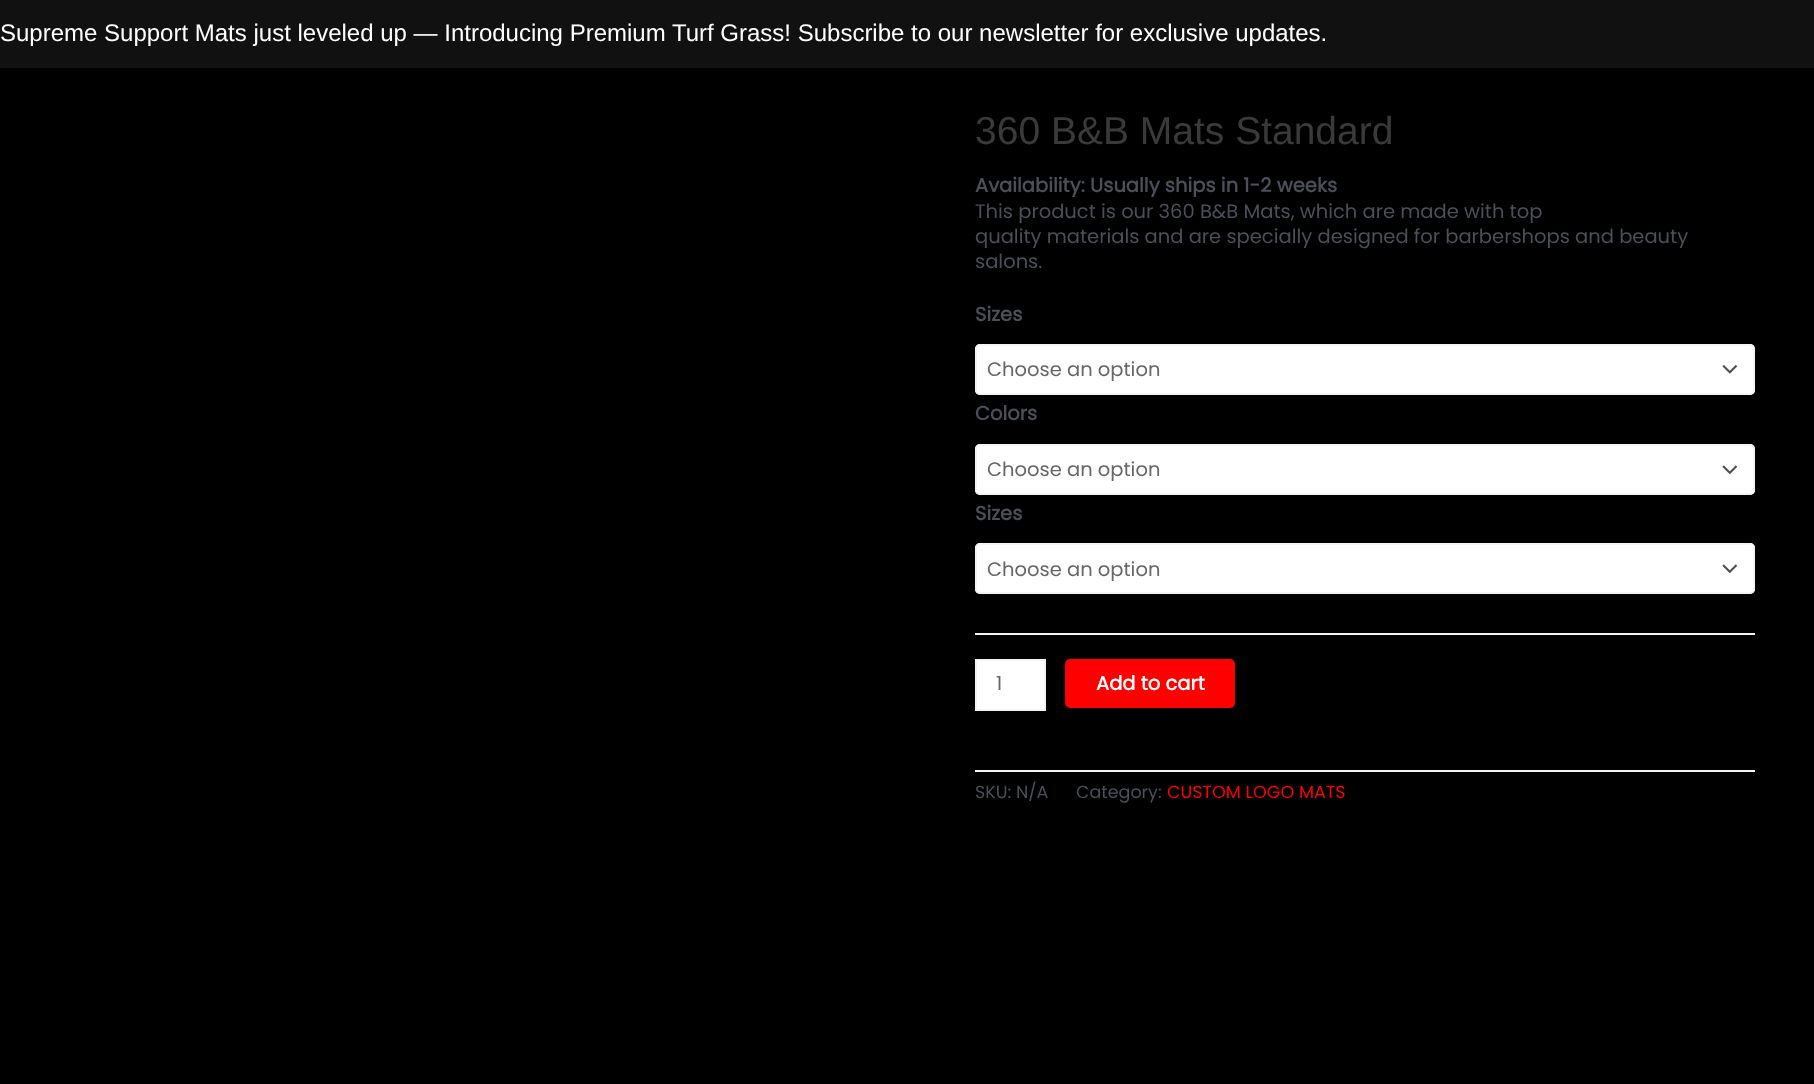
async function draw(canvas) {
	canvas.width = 1814;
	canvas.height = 1084;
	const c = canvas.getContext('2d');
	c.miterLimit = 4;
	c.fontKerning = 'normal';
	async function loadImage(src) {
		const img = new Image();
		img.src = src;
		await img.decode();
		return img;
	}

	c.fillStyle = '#000';
	c.fillRect(0, 0, 1814, 1084);
	c.fillStyle = '#111';
	c.fillRect(0, 0, 1814, 68);
	c.font = '24px Liberation Sans';
	c.fillStyle = '#fff';
	c.fillText('Supreme Support Mats just leveled up — Introducing Premium Turf Grass! Subscribe to our newsletter for exclusive updates.', 0, 41);
	c.font = '39px Liberation Sans';
	c.fillStyle = '#3a3a3a';
	c.fillText('360 B&B Mats Standard', 975, 144);
	c.font = 'bold 19.5px Poppins';
	c.fillStyle = '#4b4f58';
	c.fillText('Availability: Usually ships in 1-2 weeks', 975, 192);
	c.font = '19.5px Poppins';
	for (const [text, x, y] of [
		['This product is our 360 B&B Mats, which are made with top', 975, 218],
		['quality materials and are specially designed for barbershops and beauty', 975, 243],
		['salons.', 975, 268],
	]) {
		c.fillText(text, x, y);
	}
	c.fillStyle = '#f2f5f7';
	c.fillRect(975, 633, 780, 2);
	c.font = 'bold 19.5px Poppins';
	c.fillStyle = '#4b4f58';
	c.fillText('Sizes', 975, 321);
	c.fillStyle = '#fff';
	c.beginPath();
	c.roundRect(975, 344, 780, 51, 5);
	c.fill();
	c.drawImage(await loadImage('img1.png'), 1722, 365, 16, 9);
	c.beginPath();
	c.roundRect(976, 345, 778, 49, 4);
	c.strokeStyle = '#f2f5f7';
	c.lineWidth = 2;
	c.stroke();
	c.font = '19.5px Poppins';
	c.fillStyle = '#666';
	c.fillText('Choose an option', 987, 376);
	c.font = 'bold 19.5px Poppins';
	c.fillStyle = '#4b4f58';
	c.fillText('Colors', 975, 420);
	c.fillStyle = '#fff';
	c.beginPath();
	c.roundRect(975, 444, 780, 51, 5);
	c.fill();
	c.drawImage(await loadImage('img2.png'), 1722, 465, 16, 9);
	c.beginPath();
	c.roundRect(976, 445, 778, 49, 4);
	c.stroke();
	c.font = '19.5px Poppins';
	c.fillStyle = '#666';
	c.fillText('Choose an option', 987, 476);
	c.font = 'bold 19.5px Poppins';
	c.fillStyle = '#4b4f58';
	c.fillText('Sizes', 975, 520);
	c.fillStyle = '#fff';
	c.beginPath();
	c.roundRect(975, 543, 780, 51, 5);
	c.fill();
	c.drawImage(await loadImage('img3.png'), 1722, 564, 16, 10);
	c.beginPath();
	c.roundRect(976, 544, 778, 49, 4);
	c.stroke();
	c.font = '19.5px Poppins';
	c.fillStyle = '#666';
	c.fillText('Choose an option', 987, 576);
	c.fillStyle = '#fff';
	c.beginPath();
	c.rect(976, 660, 69, 50);
	c.fill();
	c.stroke();
	c.fillStyle = '#666';
	c.fillText('1', 996, 690);
	c.fillStyle = '#f00';
	c.beginPath();
	c.roundRect(1065, 659, 170, 49, 5);
	c.fill();
	c.font = 'bold 19.5px Poppins';
	c.fillStyle = '#fff';
	c.fillText('Add to cart', 1096, 690);
	c.fillStyle = '#f2f5f7';
	c.fillRect(975, 770, 780, 2);
	c.font = '17.5px Poppins';
	c.fillStyle = '#4b4f58';
	c.fillText('SKU: N/A', 975, 798);
	c.fillText('Category:', 1076, 798);
	c.fillStyle = '#f00';
	c.fillText('CUSTOM LOGO MATS', 1167, 798);
}

draw(document.querySelector('canvas'));
